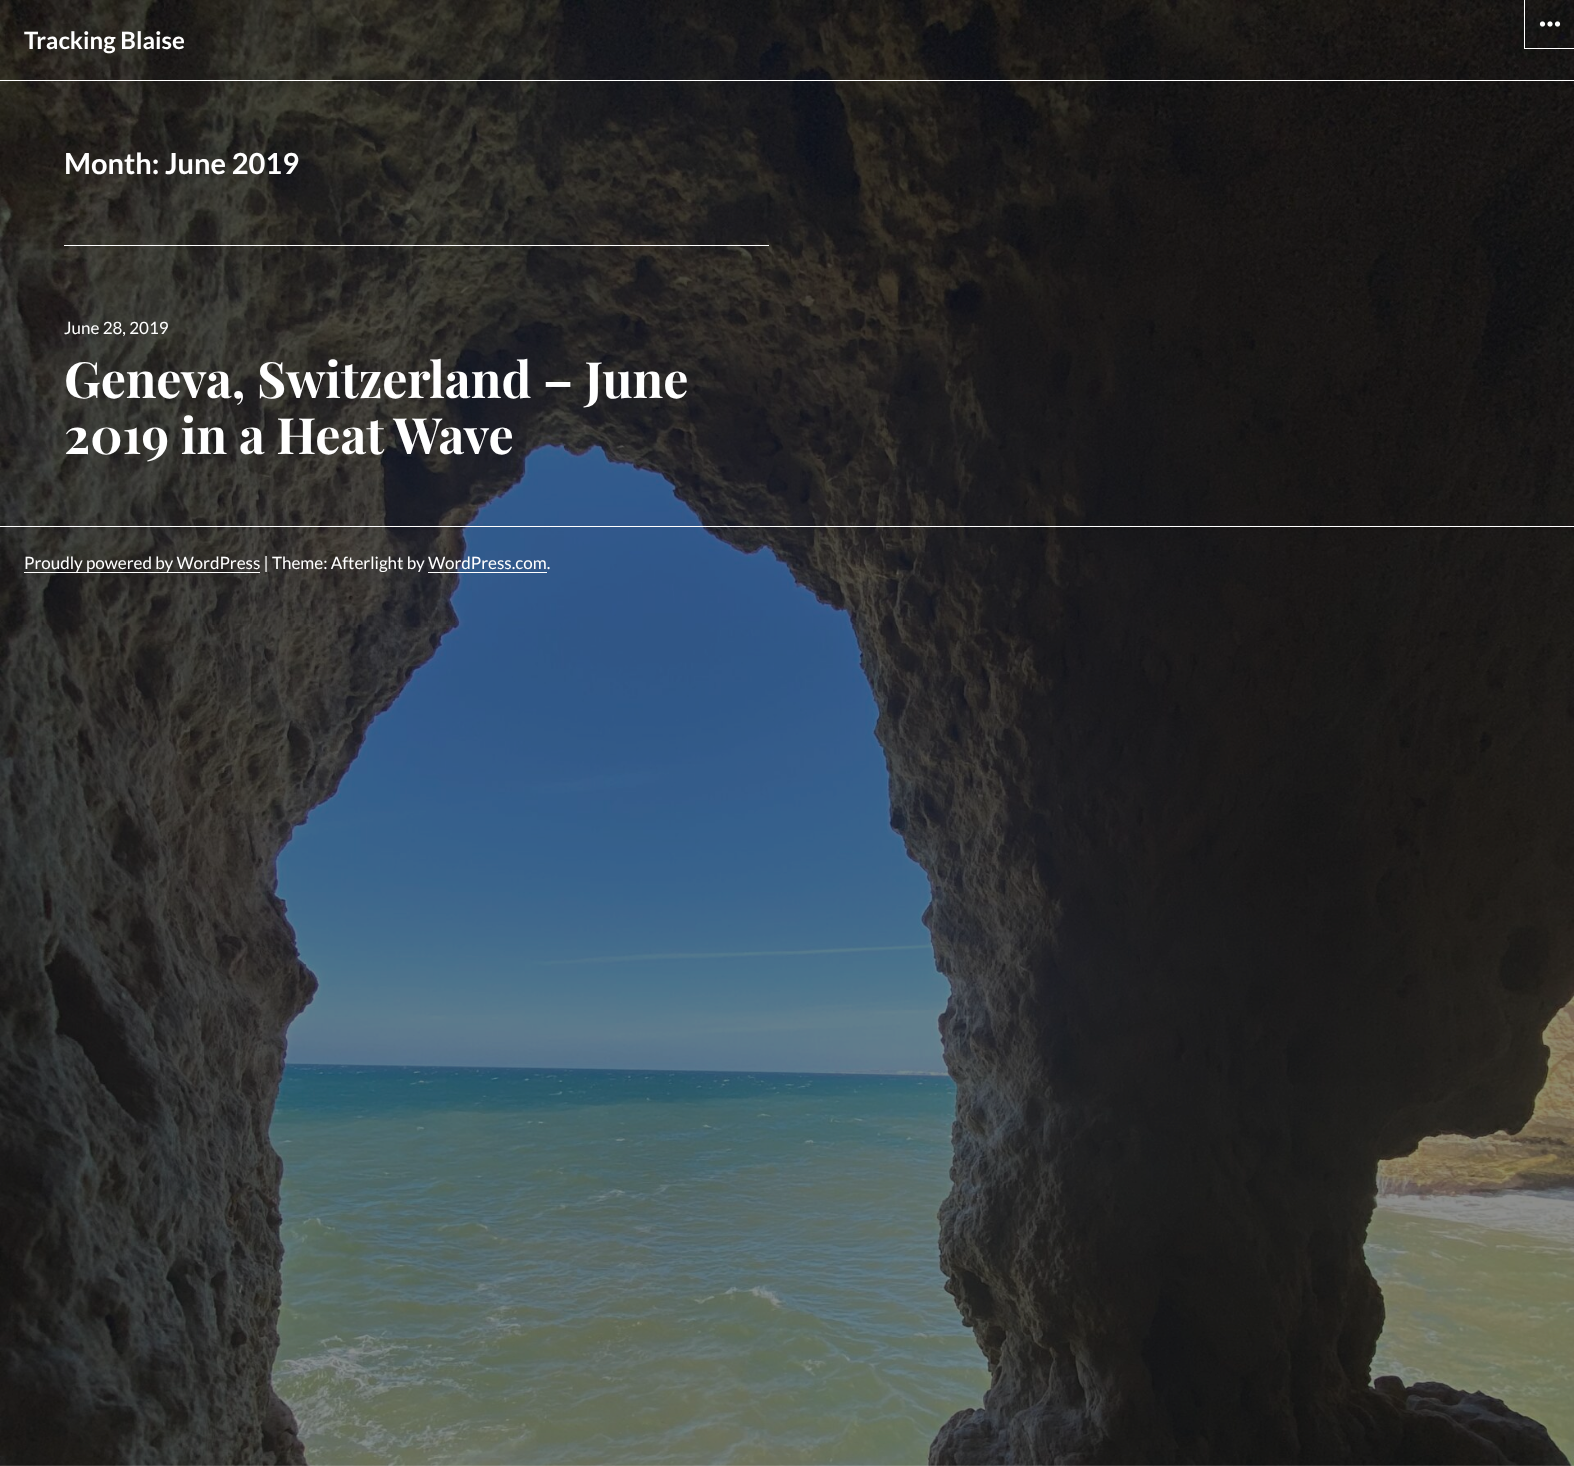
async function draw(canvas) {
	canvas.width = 1574;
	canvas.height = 1466;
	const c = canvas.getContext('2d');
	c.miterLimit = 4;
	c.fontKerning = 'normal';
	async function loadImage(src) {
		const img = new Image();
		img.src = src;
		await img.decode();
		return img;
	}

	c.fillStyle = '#fff';
	c.fillRect(0, 0, 1574, 1466);
	c.drawImage(await loadImage('img1.png'), 0, 0, 1574, 1466);
	c.fillRect(0, 80, 1574, 1);
	c.font = 'bold 24px Lato';
	c.fillText('Tracking Blaise', 24, 49);
	c.fillRect(1524, 48, 50, 1);
	c.fillRect(1524, 0, 1, 49);
	c.drawImage(await loadImage('img2.png'), 1539, 21, 22, 6);
	c.fillRect(64, 245, 705, 1);
	c.font = 'bold 29px Lato';
	c.fillText('Month: June 2019', 64, 174);
	c.font = '17px Lato';
	c.fillText('June 28, 2019', 64, 334);
	c.font = 'bold 50px Playfair Display';
	c.fillText('Geneva, Switzerland – June', 64, 398);
	c.fillText('2019 in a Heat Wave', 64, 454);
	c.fillRect(0, 526, 1574, 1);
	c.fillRect(24, 572, 236, 1);
	c.font = '17px Lato';
	c.fillText('Proudly powered by WordPress | Theme: Afterlight by WordPress.com.', 24, 569);
	c.fillRect(428, 572, 119, 1);
}

draw(document.querySelector('canvas'));
